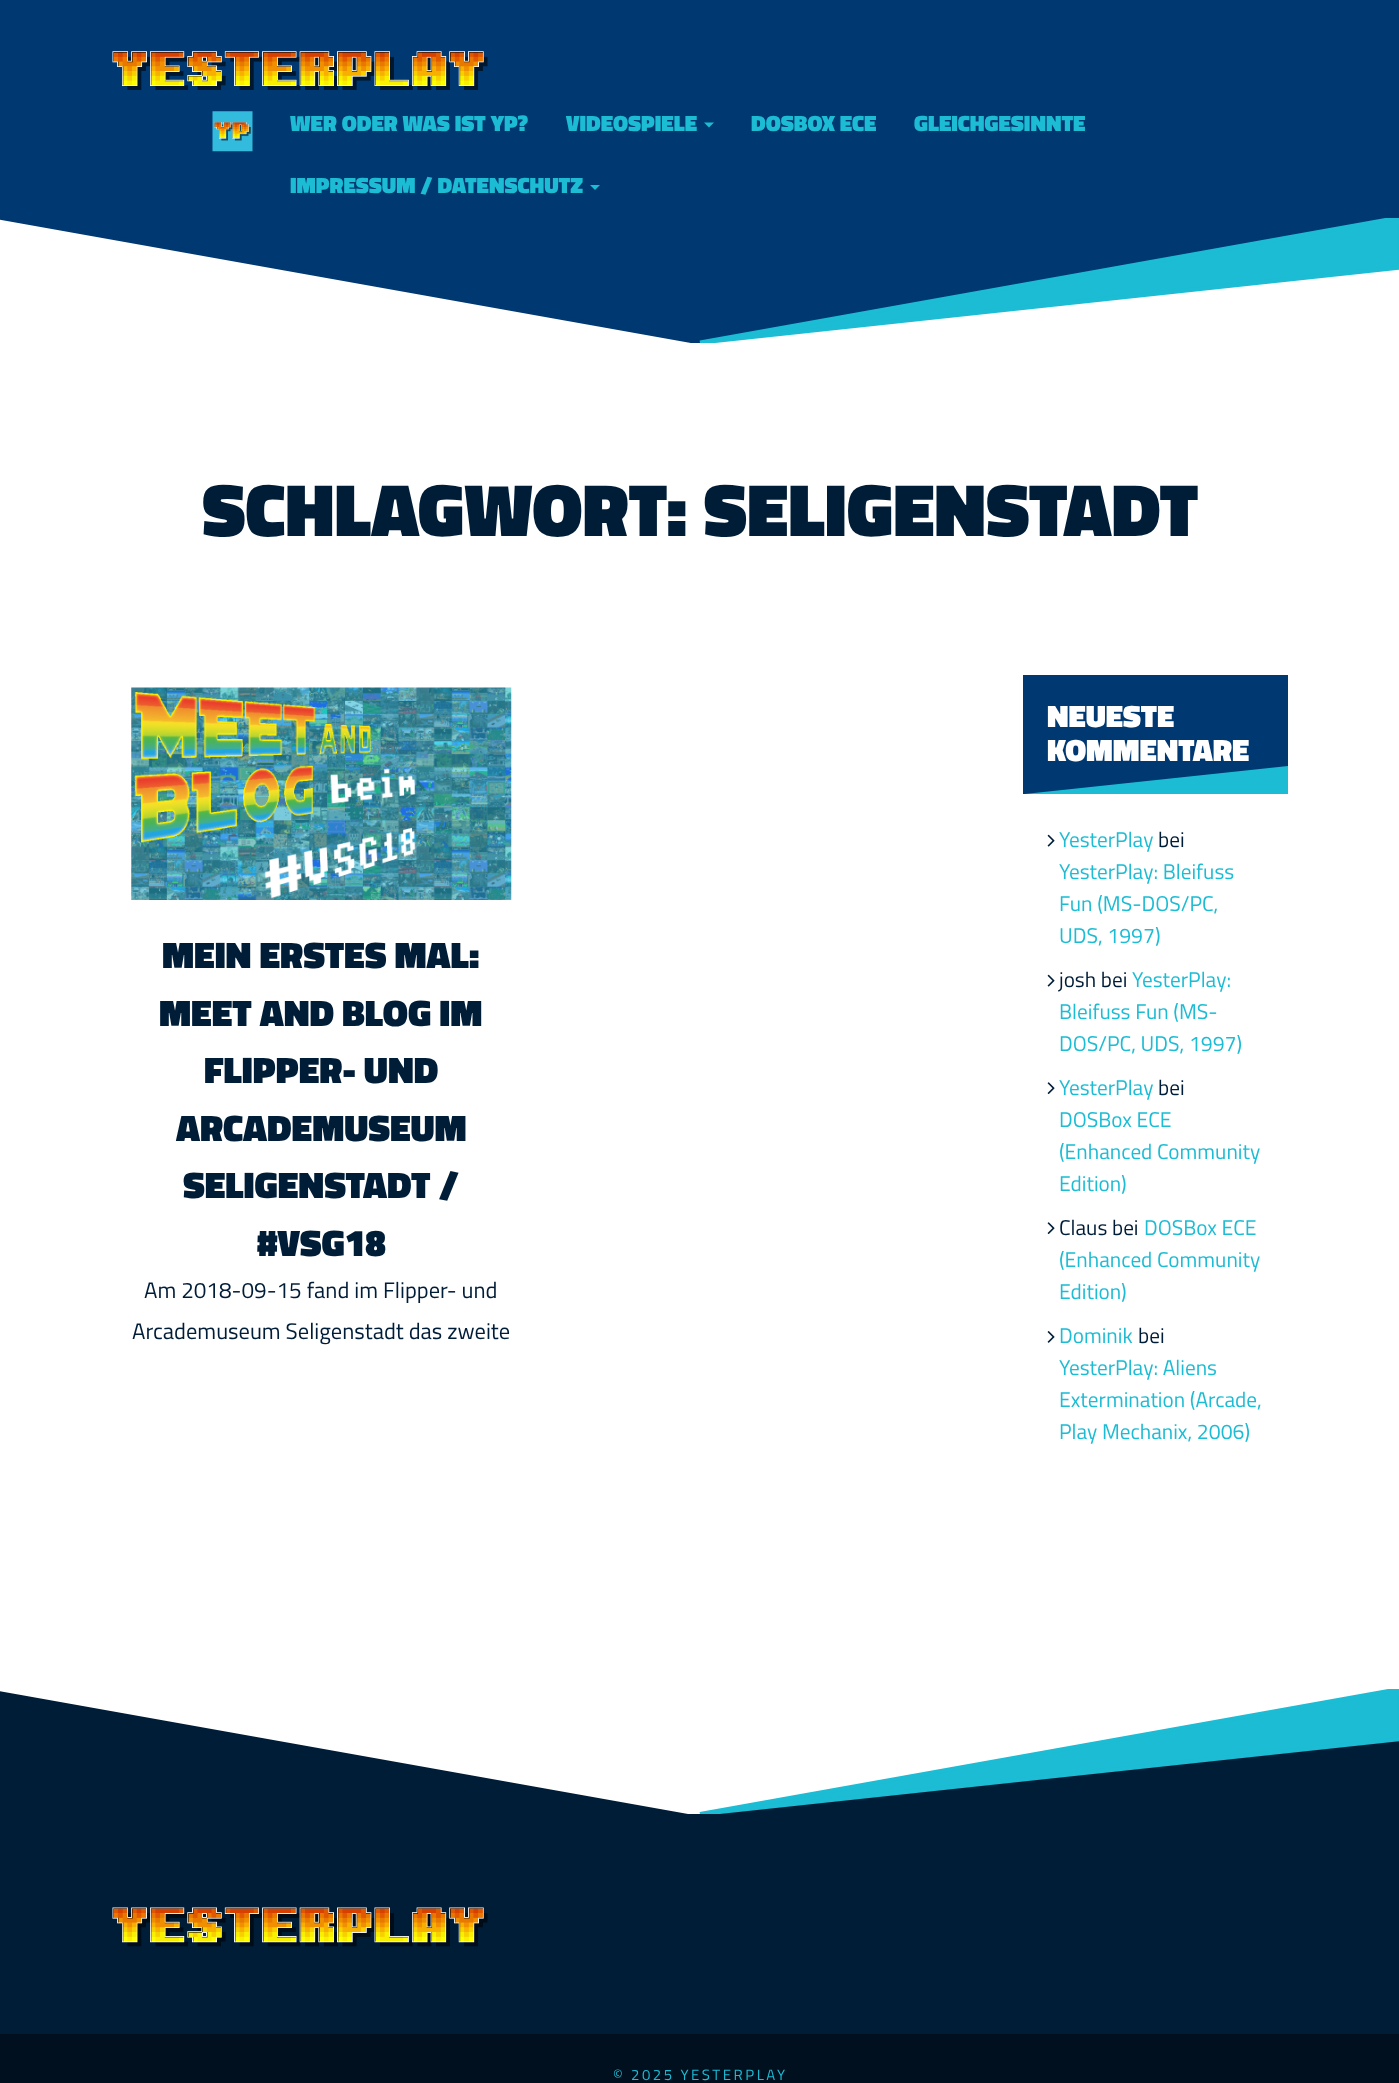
async function draw(canvas) {
	canvas.width = 1399;
	canvas.height = 2083;
	const c = canvas.getContext('2d');
	c.miterLimit = 4;
	c.fontKerning = 'normal';
	async function loadImage(src) {
		const img = new Image();
		img.src = src;
		await img.decode();
		return img;
	}

	c.fillStyle = '#fff';
	c.fillRect(0, 0, 1399, 2083);
	c.fillStyle = '#003871';
	c.fillRect(0, 0, 1399, 218);
	c.drawImage(await loadImage('img1.png'), 112, 51, 376, 39);
	c.drawImage(await loadImage('img2.png'), 212, 111, 41, 41);
	c.font = '900 22.5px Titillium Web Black';
	c.fillStyle = '#1bbcd4';
	c.fillText('WER ODER WAS IST YP?', 290, 131);
	c.fillText('VIDEOSPIELE', 566, 131);
	c.beginPath();
	c.moveTo(704, 122.5);
	c.lineTo(714, 122.5);
	c.lineTo(709, 127.5);
	c.closePath();
	c.fill();
	for (const [text, x, y] of [
		['DOSBOX ECE', 751, 131],
		['GLEICHGESINNTE', 914, 131],
		['IMPRESSUM / DATENSCHUTZ', 290, 193],
	]) {
		c.fillText(text, x, y);
	}
	c.beginPath();
	c.moveTo(590, 185);
	c.lineTo(600, 185);
	c.lineTo(595, 190);
	c.closePath();
	c.fill();
	c.fillStyle = '#003871';
	c.beginPath();
	c.moveTo(0, 218);
	c.lineTo(700, 342);
	c.lineTo(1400, 218);
	c.closePath();
	c.fill();
	c.save();
	c.beginPath();
	c.rect(0, 218, 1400, 125);
	c.clip();
	c.beginPath();
	c.moveTo(0, 217.5);
	c.lineTo(700, 342.5);
	c.lineTo(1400, 217.5);
	c.closePath();
	c.strokeStyle = '#003871';
	c.lineWidth = 4.2;
	c.stroke();
	c.restore();
	c.fillStyle = '#1bbcd4';
	c.beginPath();
	c.moveTo(700, 342);
	c.lineTo(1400, 268);
	c.lineTo(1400, 218);
	c.closePath();
	c.fill();
	c.save();
	c.beginPath();
	c.rect(0, 218, 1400, 125);
	c.clip();
	c.beginPath();
	c.moveTo(700, 342.5);
	c.lineTo(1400, 267.5);
	c.lineTo(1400, 217.5);
	c.closePath();
	c.strokeStyle = '#1bbcd4';
	c.lineWidth = 4.2;
	c.stroke();
	c.restore();
	c.font = '900 75px Titillium Web Black';
	c.fillStyle = '#001d38';
	c.fillText('SCHLAGWORT: SELIGENSTADT', 202, 536);
	c.drawImage(await loadImage('img3.png'), 131, 687, 381, 213);
	c.font = '900 37.5px Titillium Web Black';
	for (const [text, x, y] of [
		['MEIN ERSTES MAL:', 162, 968],
		['MEET AND BLOG IM', 159, 1026],
		['FLIPPER- UND', 204, 1083],
		['ARCADEMUSEUM', 176, 1141],
		['SELIGENSTADT /', 183, 1198],
		['#VSG18', 257, 1256],
	]) {
		c.fillText(text, x, y);
	}
	c.font = '22.5px Titillium Web';
	c.fillText('Am 2018-09-15 fand im Flipper- und', 144, 1298);
	c.fillText('Arcademuseum Seligenstadt das zweite', 132, 1339);
	c.fillStyle = '#1bbcd4';
	c.fillRect(1025, 766, 263, 28);
	c.save();
	c.beginPath();
	c.rect(1023, 675, 265, 119);
	c.clip();
	c.fillStyle = '#003871';
	c.beginPath();
	c.moveTo(955, 682);
	c.lineTo(1352, 640);
	c.lineTo(1364, 758);
	c.lineTo(968, 800);
	c.closePath();
	c.fill();
	c.restore();
	c.font = '900 31.25px Titillium Web Black';
	c.fillStyle = '#fff';
	c.fillText('NEUESTE', 1047, 727);
	c.fillText('KOMMENTARE', 1047, 761);
	c.drawImage(await loadImage('img4.png'), 1047, 834, 8, 13);
	c.font = '21.25px Titillium Web';
	c.fillStyle = '#1bbcd4';
	c.fillText('YesterPlay', 1059, 847);
	c.fillStyle = '#001d38';
	c.fillText('bei', 1158, 847);
	c.fillStyle = '#1bbcd4';
	for (const [text, x, y] of [
		['YesterPlay: Bleifuss', 1059, 879],
		['Fun (MS-DOS/PC,', 1059, 911],
		['UDS, 1997)', 1059, 943],
	]) {
		c.fillText(text, x, y);
	}
	c.drawImage(await loadImage('img4.png'), 1047, 974, 8, 13);
	c.fillStyle = '#001d38';
	c.fillText('josh bei', 1059, 987);
	c.fillStyle = '#1bbcd4';
	for (const [text, x, y] of [
		['YesterPlay:', 1132, 987],
		['Bleifuss Fun (MS-', 1059, 1019],
		['DOS/PC, UDS, 1997)', 1059, 1051],
	]) {
		c.fillText(text, x, y);
	}
	c.drawImage(await loadImage('img5.png'), 1047, 1082, 8, 12);
	c.fillText('YesterPlay', 1059, 1095);
	c.fillStyle = '#001d38';
	c.fillText('bei', 1158, 1095);
	c.fillStyle = '#1bbcd4';
	for (const [text, x, y] of [
		['DOSBox ECE', 1059, 1127],
		['(Enhanced Community', 1059, 1159],
		['Edition)', 1059, 1191],
	]) {
		c.fillText(text, x, y);
	}
	c.drawImage(await loadImage('img5.png'), 1047, 1222, 8, 12);
	c.fillStyle = '#001d38';
	c.fillText('Claus bei', 1059, 1235);
	c.fillStyle = '#1bbcd4';
	for (const [text, x, y] of [
		['DOSBox ECE', 1144, 1235],
		['(Enhanced Community', 1059, 1267],
		['Edition)', 1059, 1299],
	]) {
		c.fillText(text, x, y);
	}
	c.drawImage(await loadImage('img6.png'), 1047, 1331, 8, 12);
	c.fillText('Dominik', 1059, 1343);
	c.fillStyle = '#001d38';
	c.fillText('bei', 1138, 1343);
	c.fillStyle = '#1bbcd4';
	for (const [text, x, y] of [
		['YesterPlay: Aliens', 1059, 1375],
		['Extermination (Arcade,', 1059, 1407],
		['Play Mechanix, 2006)', 1059, 1439],
	]) {
		c.fillText(text, x, y);
	}
	c.fillStyle = '#001d38';
	c.fillRect(0, 1691, 1399, 343);
	c.fillStyle = '#fff';
	c.beginPath();
	c.moveTo(0, 1689);
	c.lineTo(700, 1814);
	c.lineTo(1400, 1689);
	c.closePath();
	c.fill();
	c.save();
	c.beginPath();
	c.rect(0, 1689, 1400, 125);
	c.clip();
	c.beginPath();
	c.moveTo(0, 1689);
	c.lineTo(700, 1814);
	c.lineTo(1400, 1689);
	c.closePath();
	c.strokeStyle = '#fff';
	c.lineWidth = 4.2;
	c.stroke();
	c.restore();
	c.fillStyle = '#1bbcd4';
	c.beginPath();
	c.moveTo(700, 1814);
	c.lineTo(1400, 1739);
	c.lineTo(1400, 1689);
	c.closePath();
	c.fill();
	c.save();
	c.beginPath();
	c.rect(0, 1689, 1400, 125);
	c.clip();
	c.beginPath();
	c.moveTo(700, 1814);
	c.lineTo(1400, 1739);
	c.lineTo(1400, 1689);
	c.closePath();
	c.strokeStyle = '#1bbcd4';
	c.lineWidth = 4.2;
	c.stroke();
	c.restore();
	c.drawImage(await loadImage('img7.png'), 112, 1907, 376, 40);
	c.fillStyle = '#00101f';
	c.fillRect(0, 2034, 1399, 49);
	c.letterSpacing = '2.5px';
	c.font = '15px Titillium Web';
	c.fillStyle = '#1bbcd4';
	c.fillText('© 2025 YESTERPLAY', 613, 2080);
}

draw(document.querySelector('canvas'));
